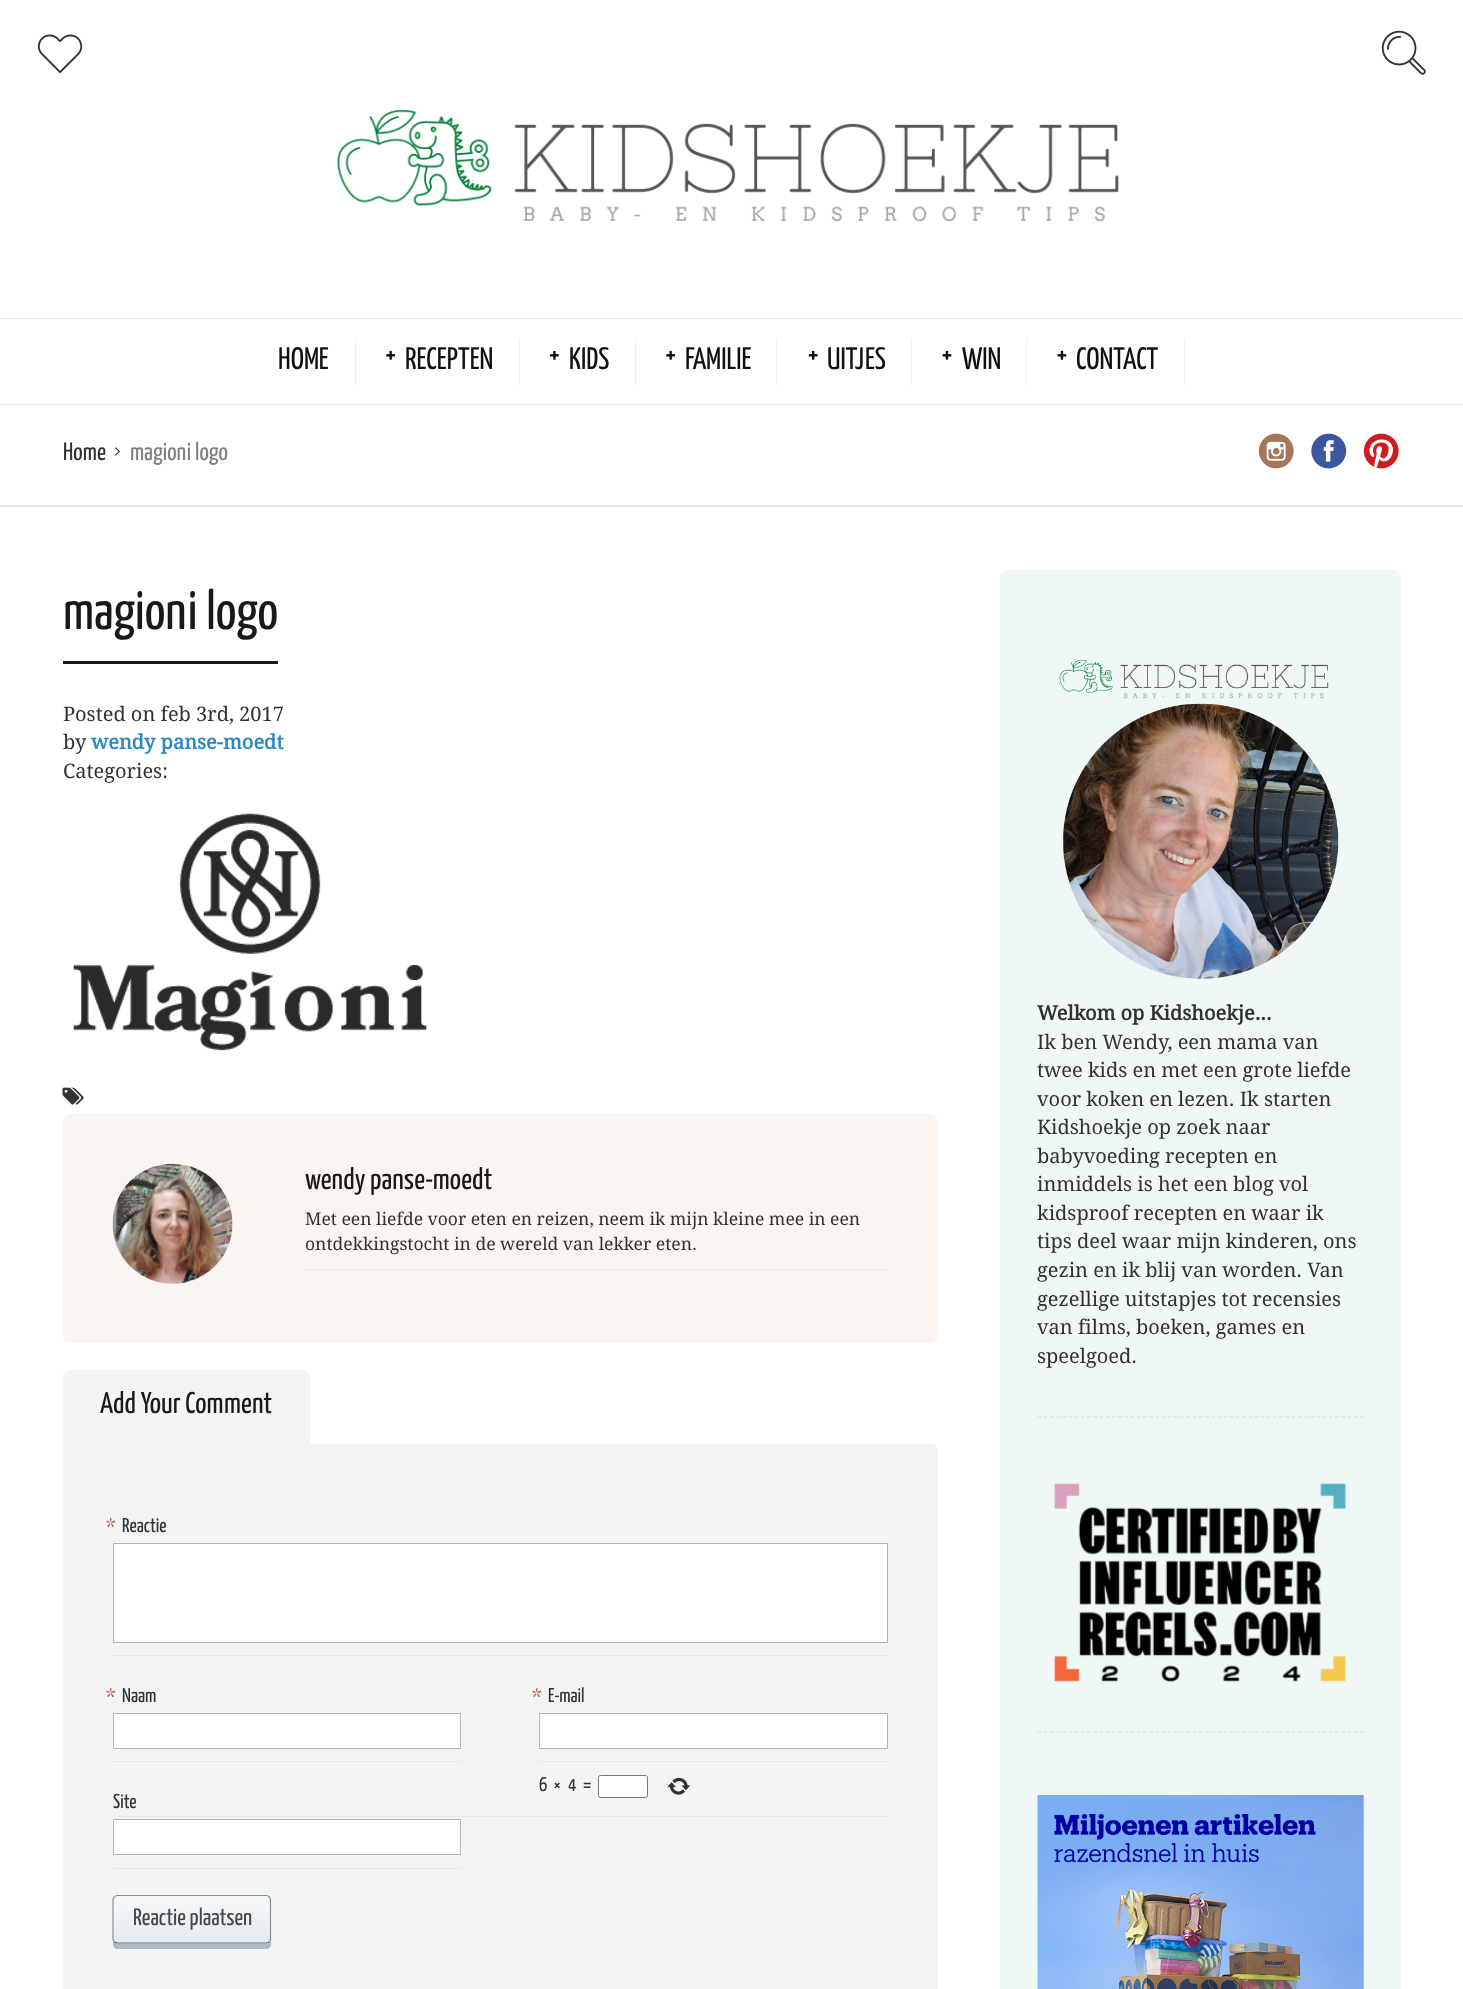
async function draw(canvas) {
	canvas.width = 1463;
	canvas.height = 1989;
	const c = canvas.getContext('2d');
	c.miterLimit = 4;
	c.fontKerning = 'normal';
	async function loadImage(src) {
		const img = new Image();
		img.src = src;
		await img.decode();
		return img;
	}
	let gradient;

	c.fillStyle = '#fff';
	c.fillRect(0, 0, 1463, 1989);
	c.drawImage(await loadImage('img1.png'), 37, 34, 46, 39);
	c.drawImage(await loadImage('img2.png'), 1381, 30, 45, 45);
	c.drawImage(await loadImage('img3.png'), 336, 109, 783, 113);
	c.fillStyle = '#e6e6e6';
	c.fillRect(0, 318, 1463, 1);
	c.fillStyle = '#f0f0f0';
	c.fillRect(355, 338, 1, 47);
	c.font = '200 31px Yanone Kaffeesatz';
	c.fillStyle = '#111';
	c.fillText('HOME', 278, 369);
	c.fillStyle = '#f0f0f0';
	c.fillRect(519, 338, 1, 47);
	c.drawImage(await loadImage('img4.png'), 386, 350, 10, 10);
	c.fillStyle = '#111';
	c.fillText('RECEPTEN', 405, 369);
	c.fillStyle = '#f0f0f0';
	c.fillRect(635, 338, 1, 47);
	c.drawImage(await loadImage('img5.png'), 550, 350, 9, 10);
	c.fillStyle = '#111';
	c.fillText('KIDS', 569, 369);
	c.fillStyle = '#f0f0f0';
	c.fillRect(776, 338, 1, 47);
	c.drawImage(await loadImage('img4.png'), 666, 350, 10, 10);
	c.fillStyle = '#111';
	c.fillText('FAMILIE', 685, 369);
	c.fillStyle = '#f0f0f0';
	c.fillRect(911, 338, 1, 47);
	c.drawImage(await loadImage('img6.png'), 808, 350, 10, 10);
	c.fillStyle = '#111';
	c.fillText('UITJES', 827, 369);
	c.fillStyle = '#f0f0f0';
	c.fillRect(1026, 338, 1, 47);
	c.drawImage(await loadImage('img7.png'), 942, 350, 10, 10);
	c.fillStyle = '#111';
	c.fillText('WIN', 962, 369);
	c.fillStyle = '#f0f0f0';
	c.fillRect(1184, 338, 1, 47);
	c.drawImage(await loadImage('img7.png'), 1057, 350, 10, 10);
	c.fillStyle = '#111';
	c.fillText('CONTACT', 1076, 369);
	c.fillStyle = '#e6e6e6';
	c.fillRect(0, 404, 1463, 1);
	c.font = '200 25px Yanone Kaffeesatz';
	c.fillStyle = '#323130';
	c.fillText('Home', 63, 460);
	c.drawImage(await loadImage('img8.png'), 115, 447, 5, 9);
	c.fillStyle = '#808080';
	c.fillText('magioni logo', 130, 460);
	c.drawImage(await loadImage('img9.png'), 1258, 433, 36, 36);
	c.drawImage(await loadImage('img10.png'), 1311, 433, 36, 36);
	c.drawImage(await loadImage('img11.png'), 1363, 433, 36, 36);
	c.fillStyle = '#e6e6e6';
	c.fillRect(0, 505, 1463, 2);
	c.fillStyle = '#1a1a1a';
	c.fillRect(63, 661, 215, 3);
	c.font = '200 55px Yanone Kaffeesatz';
	c.fillStyle = '#191918';
	c.fillText('magioni logo', 63, 629);
	c.font = '20px Droid Serif';
	c.fillStyle = '#323130';
	c.fillText('Posted on feb 3rd, 2017', 63, 721);
	c.fillText('by', 63, 749);
	c.font = 'bold 20px Droid Serif';
	c.fillStyle = '#2a88c5';
	c.fillText('wendy panse-moedt', 91, 749);
	c.font = '20px Droid Serif';
	c.fillStyle = '#323130';
	c.fillText('Categories:', 63, 778);
	c.drawImage(await loadImage('img12.png'), 73, 813, 355, 238);
	c.drawImage(await loadImage('img13.png'), 62, 1087, 22, 18);
	c.fillStyle = '#faf5f1';
	c.beginPath();
	c.roundRect(63, 1114, 875, 229, 8);
	c.fill();
	c.drawImage(await loadImage('img14.png'), 112, 1163, 121, 121);
	c.font = '200 30px Yanone Kaffeesatz';
	c.fillStyle = '#191918';
	c.fillText('wendy panse-moedt', 305, 1189);
	c.font = '17.5px Droid Serif';
	c.fillStyle = '#323130';
	c.fillText('Met een liefde voor eten en reizen, neem ik mijn kleine mee in een', 305, 1225);
	c.fillText('ontdekkingstocht in de wereld van lekker eten.', 305, 1250);
	c.fillStyle = '#eee9e5';
	c.fillRect(305, 1269, 583, 1);
	c.fillStyle = '#f2f4f5';
	c.beginPath();
	c.roundRect(63, 1370, 247, 74, [8, 8, 0, 0]);
	c.fill();
	c.font = '200 30px Yanone Kaffeesatz';
	c.fillStyle = '#191918';
	c.fillText('Add Your Comment', 100, 1413);
	c.fillStyle = '#f2f4f5';
	c.beginPath();
	c.moveTo(63, 1444);
	c.lineTo(930, 1444);
	c.bezierCurveTo(934.5, 1444, 938, 1447.5, 938, 1452);
	c.lineTo(938, 1986);
	c.bezierCurveTo(938, 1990.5, 934.5, 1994, 930, 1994);
	c.lineTo(71, 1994);
	c.bezierCurveTo(66.5, 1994, 63, 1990.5, 63, 1986);
	c.closePath();
	c.fill();
	c.fillStyle = '#e6e8e9';
	c.fillRect(113, 1655, 775, 1);
	c.font = '200 20px Yanone Kaffeesatz';
	c.fillStyle = '#b74e3d';
	c.fillText('*', 106, 1532);
	c.fillStyle = '#323130';
	c.fillText('Reactie', 122, 1532);
	c.fillStyle = '#fff';
	c.beginPath();
	c.rect(113.5, 1543.5, 774, 99);
	c.fill();
	c.strokeStyle = '#b3b3b3';
	c.stroke();
	c.fillStyle = '#e6e8e9';
	c.fillRect(113, 1761, 348, 1);
	c.fillStyle = '#b74e3d';
	c.fillText('*', 106, 1702);
	c.fillStyle = '#323130';
	c.fillText('Naam', 122, 1702);
	c.fillStyle = '#fff';
	c.beginPath();
	c.rect(113.5, 1713.5, 347, 35);
	c.fill();
	c.stroke();
	c.fillStyle = '#e6e8e9';
	c.fillRect(539, 1761, 349, 1);
	c.fillStyle = '#b74e3d';
	c.fillText('*', 532, 1702);
	c.fillStyle = '#323130';
	c.fillText('E-mail', 548, 1702);
	c.fillStyle = '#fff';
	c.beginPath();
	c.rect(539.5, 1713.5, 348, 35);
	c.fill();
	c.stroke();
	c.fillStyle = '#e6e8e9';
	c.fillRect(113, 1816, 775, 1);
	c.fillStyle = '#323130';
	for (const [text, x, y] of [
		['6', 539, 1791],
		['×', 553, 1791],
		['4', 568, 1791],
		['=', 583, 1791],
	]) {
		c.fillText(text, x, y);
	}
	c.fillStyle = '#fff';
	c.beginPath();
	c.roundRect(598.5, 1775.5, 49, 22, 2);
	c.fill();
	c.strokeStyle = '#767676';
	c.stroke();
	c.drawImage(await loadImage('img15.png'), 667, 1777, 24, 18);
	c.fillStyle = '#e6e8e9';
	c.fillRect(113, 1868, 348, 1);
	c.fillStyle = '#323130';
	c.fillText('Site', 113, 1808);
	c.fillStyle = '#fff';
	c.beginPath();
	c.rect(113.5, 1819.5, 347, 35);
	c.fill();
	c.strokeStyle = '#b3b3b3';
	c.stroke();
	c.fillStyle = '#aebac2';
	c.beginPath();
	c.moveTo(113, 1941);
	c.lineTo(113, 1944);
	c.bezierCurveTo(113, 1947, 115, 1949, 118, 1949);
	c.lineTo(266, 1949);
	c.bezierCurveTo(269, 1949, 271, 1947, 271, 1944);
	c.lineTo(271, 1940);
	c.bezierCurveTo(270, 1942, 268, 1944, 266, 1944);
	c.lineTo(118, 1944);
	c.bezierCurveTo(116, 1944, 114, 1943, 113, 1941);
	c.closePath();
	c.fill();
	c.fillStyle = '#e0e8ec';
	c.beginPath();
	c.roundRect(113, 1895, 158, 49, 5);
	c.fill();
	c.save();
	c.beginPath();
	c.roundRect(113, 1895, 158, 49, 5);
	c.clip();
	gradient = c.createLinearGradient(192, 1896, 192, 1943);
	gradient.addColorStop(0, '#f8f8f8');
	gradient.addColorStop(1, '#e3eaf0');
	c.fillStyle = gradient;
	c.fillRect(113, 1896, 158, 47);
	c.restore();
	c.beginPath();
	c.moveTo(269.5, 1942);
	c.bezierCurveTo(268.5, 1942.5, 267.5, 1943, 266, 1943);
	c.lineTo(117.5, 1943);
	c.bezierCurveTo(116.5, 1943, 115, 1942.5, 114.5, 1942);
	c.strokeStyle = '#5d6971';
	c.lineWidth = 1.2;
	c.stroke();
	c.beginPath();
	c.moveTo(114.5, 1942);
	c.bezierCurveTo(113.5, 1941, 113, 1940, 113, 1939);
	c.lineTo(113, 1900);
	c.bezierCurveTo(113, 1899, 113.5, 1897.5, 114.5, 1897);
	c.bezierCurveTo(115, 1896, 116.5, 1895.5, 117.5, 1895.5);
	c.lineTo(266, 1895.5);
	c.bezierCurveTo(267.5, 1895.5, 268.5, 1896, 269.5, 1897);
	c.bezierCurveTo(270, 1897.5, 270.5, 1899, 270.5, 1900);
	c.lineTo(270.5, 1939);
	c.bezierCurveTo(270.5, 1940, 270, 1941, 269.5, 1942);
	c.strokeStyle = '#828f98';
	c.stroke();
	c.font = '200 23.75px Yanone Kaffeesatz';
	c.fillStyle = '#40494f';
	c.fillText('Reactie plaatsen', 133, 1925);
	c.fillStyle = '#f0f7f7';
	c.beginPath();
	c.roundRect(1000, 570, 401, 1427, 8);
	c.fill();
	c.beginPath();
	c.moveTo(1037.5, 1417);
	c.lineTo(1364, 1417);
	c.strokeStyle = '#d8dede';
	c.setLineDash([3.75, 2.45]);
	c.stroke();
	c.drawImage(await loadImage('img16.png'), 1059, 659, 280, 320);
	c.font = 'bold 20px Droid Serif';
	c.fillStyle = '#323130';
	c.fillText('Welkom op Kidshoekje...', 1037, 1020);
	c.font = '20px Droid Serif';
	for (const [text, x, y] of [
		['Ik ben Wendy, een mama van', 1037, 1049],
		['twee kids en met een grote liefde', 1037, 1077],
		['voor koken en lezen. Ik starten', 1037, 1106],
		['Kidshoekje op zoek naar', 1037, 1134],
		['babyvoeding recepten en', 1037, 1163],
		['inmiddels is het een blog vol', 1037, 1191],
		['kidsproof recepten en waar ik', 1037, 1220],
		['tips deel waar mijn kinderen, ons', 1037, 1248],
		['gezin en ik blij van worden. Van', 1037, 1277],
		['gezellige uitstapjes tot recensies', 1037, 1306],
		['van films, boeken, games en', 1037, 1334],
		['speelgoed.', 1037, 1363],
	]) {
		c.fillText(text, x, y);
	}
	c.beginPath();
	c.moveTo(1037.5, 1732);
	c.lineTo(1364, 1732);
	c.stroke();
	c.drawImage(await loadImage('img17.png'), 1053, 1482, 294, 201);
	c.drawImage(await loadImage('img18.png'), 1037, 1795, 327, 194);
}

draw(document.querySelector('canvas'));
